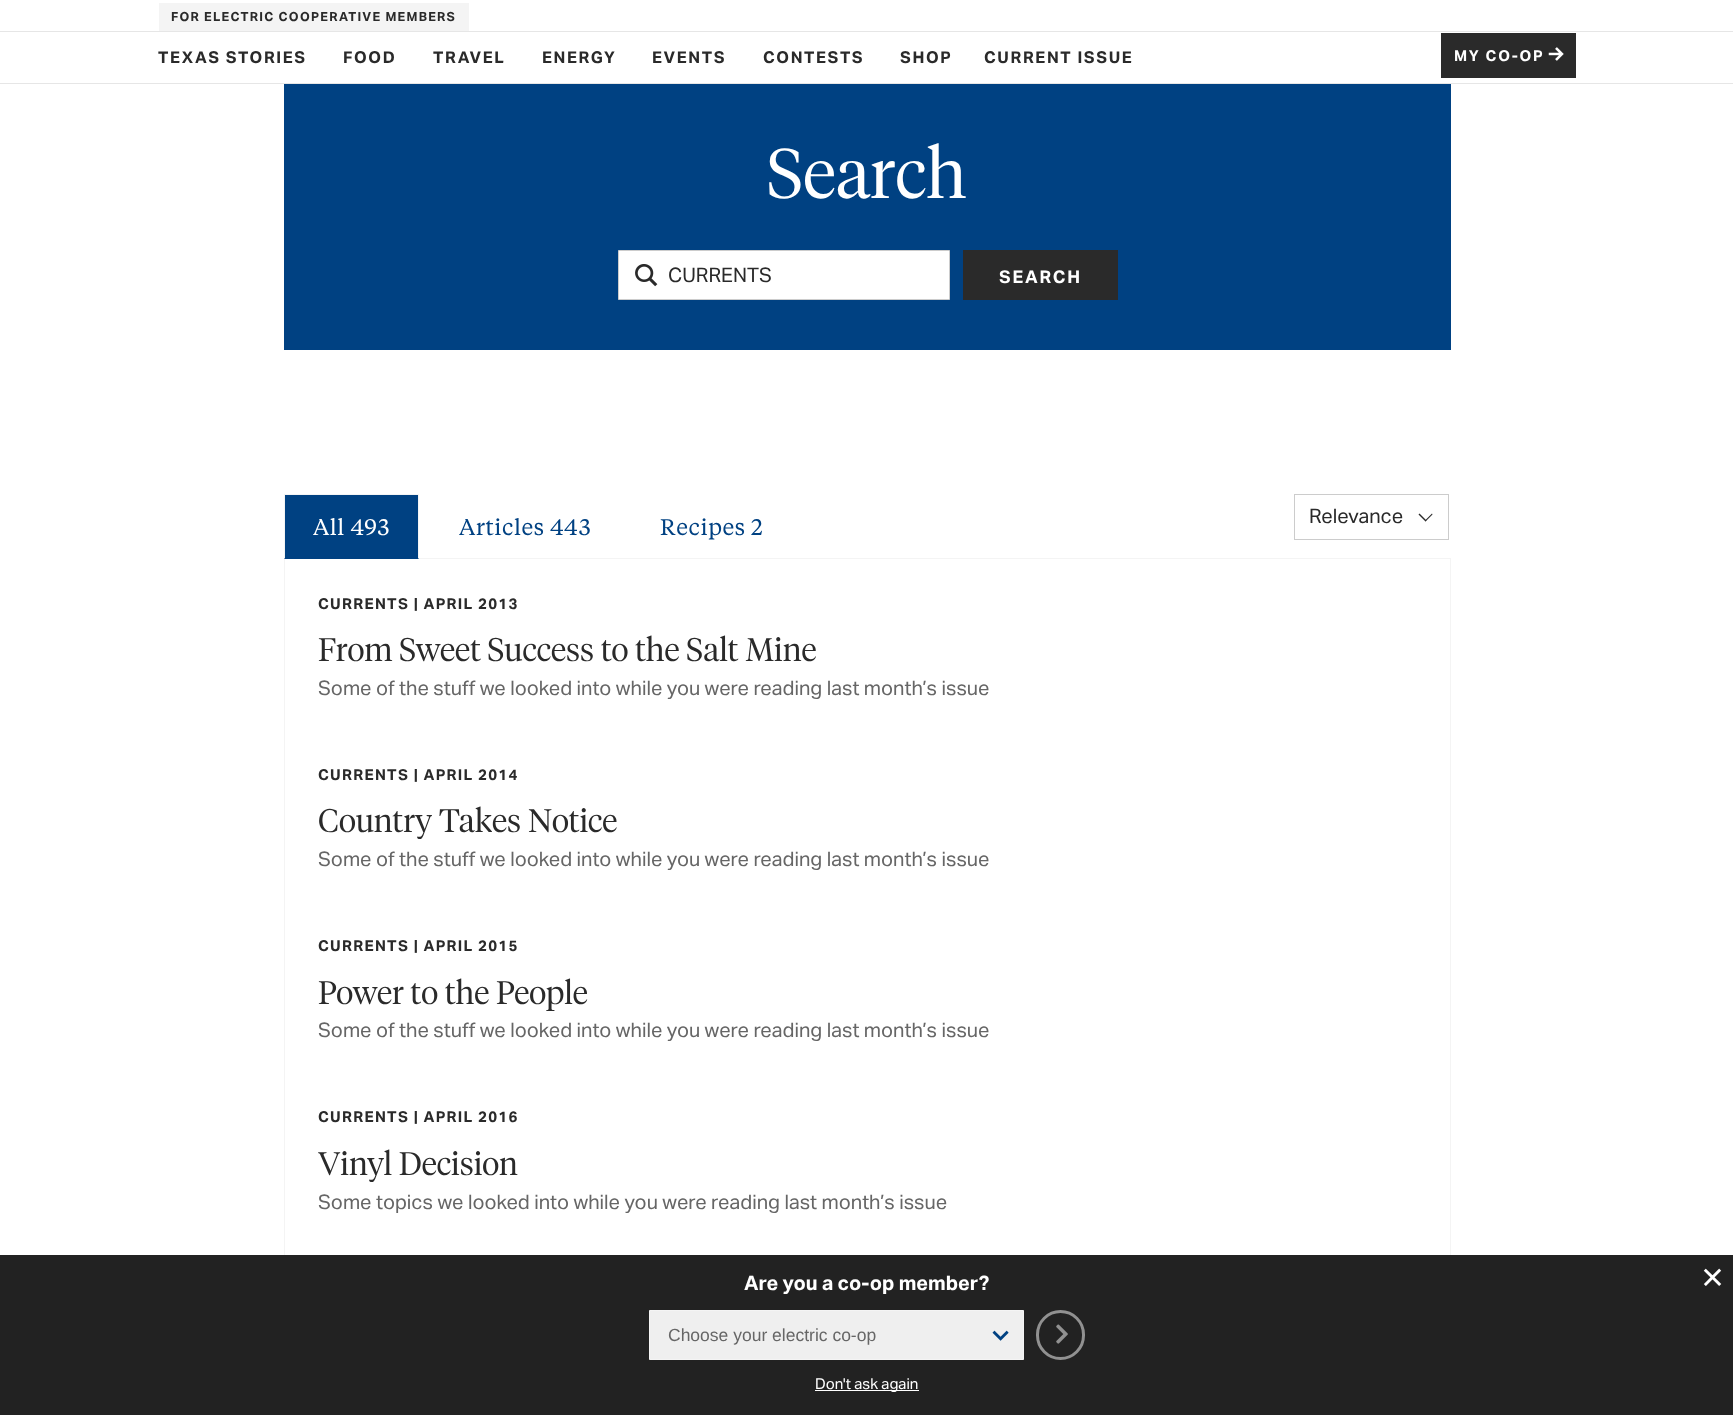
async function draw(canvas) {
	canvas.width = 1733;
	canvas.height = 1415;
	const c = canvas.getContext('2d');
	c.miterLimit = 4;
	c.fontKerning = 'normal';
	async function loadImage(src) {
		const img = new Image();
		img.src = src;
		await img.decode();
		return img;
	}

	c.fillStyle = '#fff';
	c.fillRect(0, 0, 1733, 1415);
	c.fillStyle = '#f4f4f4';
	c.fillRect(159, 3, 310, 28);
	c.letterSpacing = '1.25px';
	c.font = 'bold 12.5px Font';
	c.fillStyle = '#2a2a2a';
	c.fillText('FOR ELECTRIC COOPERATIVE MEMBERS', 171, 21);
	c.fillStyle = '#e6e6e6';
	c.fillRect(0, 31, 1733, 1);
	c.letterSpacing = '1.6px';
	c.font = 'bold 16.25px Font';
	c.fillStyle = '#2a2a2a';
	for (const [text, x, y] of [
		['TEXAS STORIES', 158, 63],
		['FOOD', 343, 63],
		['TRAVEL', 433, 63],
		['ENERGY', 542, 63],
		['EVENTS', 652, 63],
		['CONTESTS', 763, 63],
		['SHOP', 900, 63],
		['CURRENT ISSUE', 984, 63],
	]) {
		c.fillText(text, x, y);
	}
	c.fillRect(1441, 33, 135, 45);
	c.letterSpacing = '1.75px';
	c.font = 'bold 15px Font';
	c.fillStyle = '#fff';
	c.fillText('MY CO-OP', 1454, 61);
	c.drawImage(await loadImage('img1.png'), 1548, 47, 16, 14);
	c.fillStyle = '#e6e6e6';
	c.fillRect(0, 83, 1733, 1);
	c.fillStyle = '#004182';
	c.fillRect(284, 84, 1167, 266);
	c.letterSpacing = '0px';
	c.font = '300 70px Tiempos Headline';
	c.fillStyle = '#fff';
	c.fillText('Search', 767, 198);
	c.beginPath();
	c.rect(618.5, 250.5, 331, 49);
	c.fill();
	c.strokeStyle = '#ccc';
	c.stroke();
	c.drawImage(await loadImage('img2.png'), 635, 264, 23, 23);
	c.font = '20px Font';
	c.fillStyle = '#2a2a2a';
	c.fillText('CURRENTS', 668, 282);
	c.fillRect(963, 250, 155, 50);
	c.letterSpacing = '1.75px';
	c.font = 'bold 17.5px Font';
	c.fillStyle = '#fff';
	c.fillText('SEARCH', 999, 283);
	for (const [x, y, w, h, color] of [
		[419, 558, 1032, 1, '#f4f4f4'],
		[284, 495, 135, 64, '#004182'],
		[284, 494, 135, 1, '#f4f4f4'],
	]) {
		c.fillStyle = color;
		c.fillRect(x, y, w, h);
	}
	c.beginPath();
	c.moveTo(419, 494);
	c.lineTo(419, 559);
	c.lineTo(418, 558);
	c.lineTo(418, 495);
	c.closePath();
	c.fill();
	c.beginPath();
	c.moveTo(284, 559);
	c.lineTo(284, 494);
	c.lineTo(285, 495);
	c.lineTo(285, 558);
	c.closePath();
	c.fill();
	c.letterSpacing = '0.5px';
	c.font = '22.5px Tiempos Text';
	c.fillStyle = '#fff';
	c.fillText('All 493', 313, 535);
	c.fillStyle = '#004182';
	c.fillText('Articles 443', 459, 535);
	c.fillText('Recipes 2', 660, 535);
	c.strokeRect(1294.5, 494.5, 154, 45);
	c.letterSpacing = '0px';
	c.font = '20px Font';
	c.fillStyle = '#2a2a2a';
	c.fillText('Relevance', 1309, 523);
	c.beginPath();
	c.moveTo(1425, 520.5);
	c.lineTo(1432, 513.5);
	c.lineTo(1432.5, 514.5);
	c.lineTo(1425.5, 521.5);
	c.closePath();
	c.fill();
	c.beginPath();
	c.moveTo(1418.5, 514.5);
	c.lineTo(1419.5, 513.5);
	c.lineTo(1426.5, 520.5);
	c.lineTo(1425.5, 521.5);
	c.closePath();
	c.fill();
	c.fillStyle = '#f4f4f4';
	c.fillRect(1450, 559, 1, 696);
	c.fillRect(284, 559, 1, 696);
	c.letterSpacing = '1.25px';
	c.font = 'bold 15px Font';
	c.fillStyle = '#2a2a2a';
	c.fillText('CURRENTS | APRIL 2013', 318, 609);
	c.letterSpacing = '0px';
	c.font = '300 32.5px Tiempos Headline';
	c.fillText('From Sweet Success to the Salt Mine', 318, 661);
	c.font = '20px Font';
	c.fillStyle = '#666';
	c.fillText('Some of the stuff we looked into while you were reading last month’s issue', 318, 695);
	c.letterSpacing = '1.25px';
	c.font = 'bold 15px Font';
	c.fillStyle = '#2a2a2a';
	c.fillText('CURRENTS | APRIL 2014', 318, 780);
	c.letterSpacing = '0px';
	c.font = '300 32.5px Tiempos Headline';
	c.fillText('Country Takes Notice', 318, 832);
	c.font = '20px Font';
	c.fillStyle = '#666';
	c.fillText('Some of the stuff we looked into while you were reading last month’s issue', 318, 866);
	c.letterSpacing = '1.25px';
	c.font = 'bold 15px Font';
	c.fillStyle = '#2a2a2a';
	c.fillText('CURRENTS | APRIL 2015', 318, 951);
	c.letterSpacing = '0px';
	c.font = '300 32.5px Tiempos Headline';
	c.fillText('Power to the People', 318, 1004);
	c.font = '20px Font';
	c.fillStyle = '#666';
	c.fillText('Some of the stuff we looked into while you were reading last month’s issue', 318, 1037);
	c.letterSpacing = '1.25px';
	c.font = 'bold 15px Font';
	c.fillStyle = '#2a2a2a';
	c.fillText('CURRENTS | APRIL 2016', 318, 1122);
	c.letterSpacing = '0px';
	c.font = '300 32.5px Tiempos Headline';
	c.fillText('Vinyl Decision', 318, 1175);
	c.font = '20px Font';
	c.fillStyle = '#666';
	c.fillText('Some topics we looked into while you were reading last month’s issue', 318, 1209);
	c.fillStyle = '#222';
	c.fillRect(0, 1255, 1733, 160);
	c.font = 'bold 20px Font';
	c.fillStyle = '#fff';
	c.fillText('Are you a co-op member?', 744, 1290);
	c.fillStyle = '#efefef';
	c.beginPath();
	c.rect(649.5, 1310.5, 374, 49);
	c.fill();
	c.strokeStyle = '#f4f4f4';
	c.stroke();
	c.font = '17.5px Liberation Sans';
	c.fillStyle = '#666';
	c.fillText('Choose your electric co-op', 668, 1341);
	c.drawImage(await loadImage('img3.png'), 992, 1330, 17, 11);
	c.beginPath();
	c.roundRect(1037.5, 1311.5, 46, 47, 23);
	c.strokeStyle = '#919191';
	c.lineWidth = 3;
	c.stroke();
	c.drawImage(await loadImage('img4.png'), 1056, 1324, 12, 20);
	c.fillStyle = '#fff';
	c.fillRect(815, 1390, 104, 1);
	c.font = '15px Font';
	c.fillText('Don\'t ask again', 815, 1389);
	c.drawImage(await loadImage('img5.png'), 1703, 1268, 19, 18);
}

draw(document.querySelector('canvas'));
